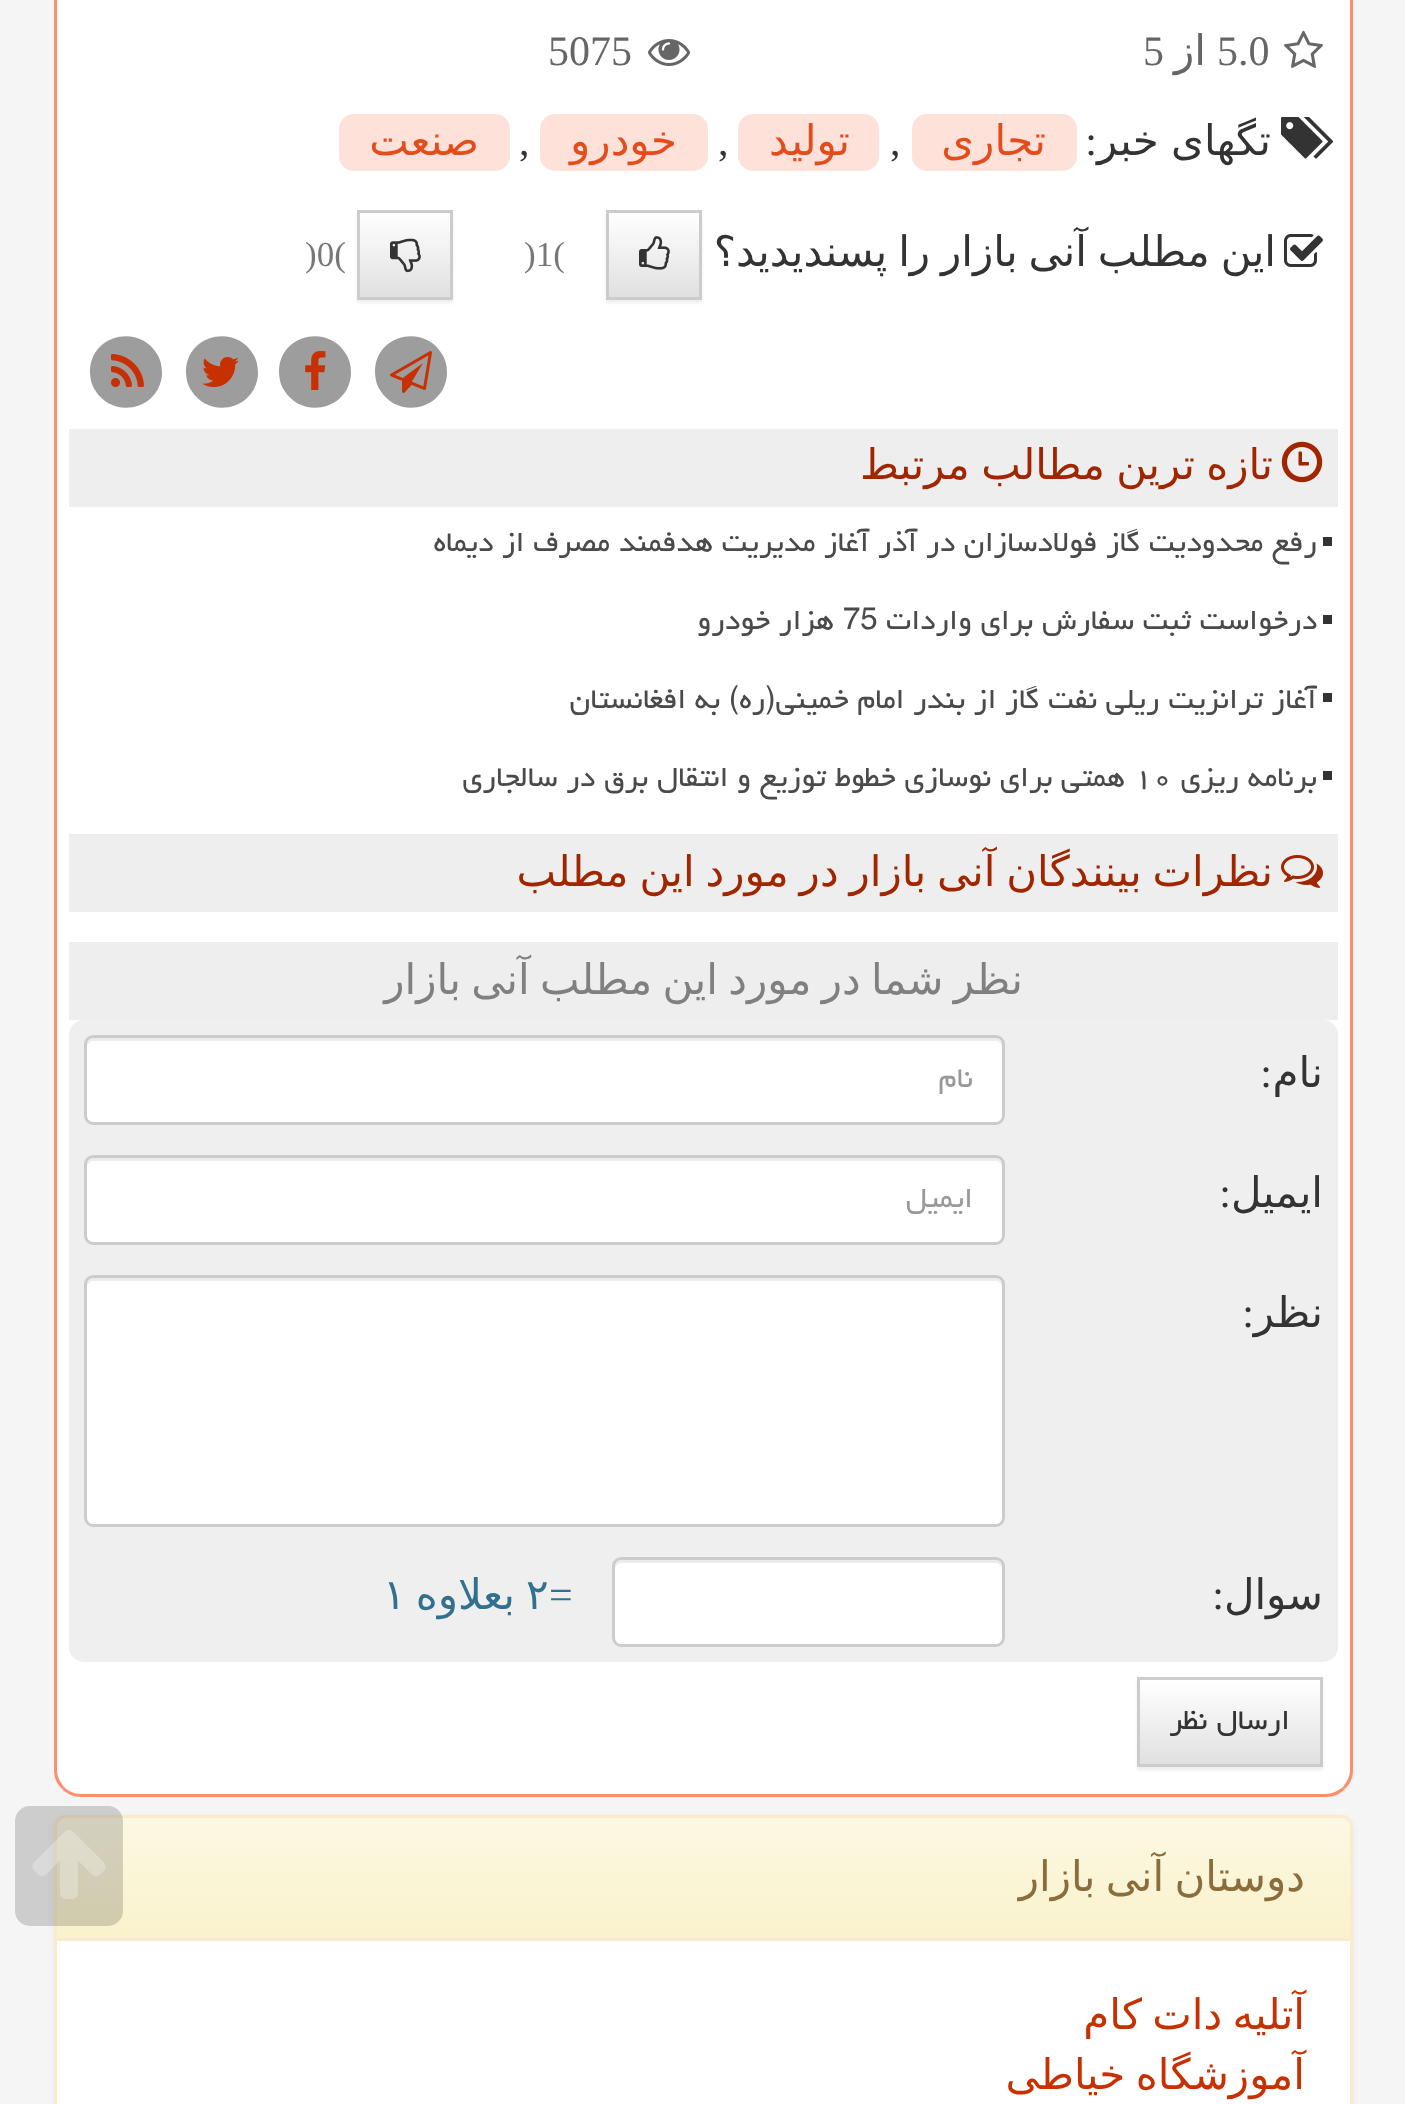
async function draw(canvas) {
	canvas.width = 1405;
	canvas.height = 2104;
	const c = canvas.getContext('2d');
	c.miterLimit = 4;
	c.fontKerning = 'normal';
	async function loadImage(src) {
		const img = new Image();
		img.src = src;
		await img.decode();
		return img;
	}
	let gradient;

	c.fillStyle = '#f5f5f5';
	c.fillRect(0, 0, 1405, 2104);
	c.fillStyle = '#fff';
	c.beginPath();
	c.moveTo(81, -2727);
	c.lineTo(1326, -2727);
	c.bezierCurveTo(1339, -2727, 1350, -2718, 1350, -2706);
	c.lineTo(1350, 1770);
	c.bezierCurveTo(1350, 1783, 1339, 1794, 1326, 1794);
	c.lineTo(81, 1794);
	c.bezierCurveTo(68, 1794, 57, 1783, 57, 1770);
	c.lineTo(57, -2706);
	c.bezierCurveTo(57, -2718, 68, -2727, 81, -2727);
	c.closePath();
	c.fill();
	c.fillStyle = '#ff8f6c';
	c.beginPath();
	c.moveTo(1353, 1770);
	c.lineTo(1353, -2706);
	c.bezierCurveTo(1353, -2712, 1351, -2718, 1348, -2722);
	c.lineTo(1346, -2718);
	c.bezierCurveTo(1348, -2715, 1350, -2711, 1350, -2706);
	c.lineTo(1350, 1770);
	c.bezierCurveTo(1350, 1776, 1347, 1782, 1343, 1787);
	c.lineTo(1345, 1789);
	c.bezierCurveTo(1350, 1784, 1353, 1778, 1353, 1770);
	c.closePath();
	c.fill();
	c.beginPath();
	c.moveTo(81, 1797);
	c.lineTo(1326, 1797);
	c.bezierCurveTo(1334, 1797, 1340, 1794, 1345, 1789);
	c.lineTo(1343, 1787);
	c.bezierCurveTo(1338, 1791, 1332, 1794, 1326, 1794);
	c.lineTo(81, 1794);
	c.bezierCurveTo(74, 1794, 68, 1791, 64, 1787);
	c.lineTo(62, 1789);
	c.bezierCurveTo(67, 1794, 74, 1797, 81, 1797);
	c.closePath();
	c.fill();
	c.beginPath();
	c.moveTo(54, -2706);
	c.lineTo(54, 1770);
	c.bezierCurveTo(54, 1778, 57, 1784, 62, 1789);
	c.lineTo(64, 1787);
	c.bezierCurveTo(60, 1782, 57, 1776, 57, 1770);
	c.lineTo(57, -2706);
	c.bezierCurveTo(57, -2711, 59, -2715, 61, -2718);
	c.lineTo(59, -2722);
	c.bezierCurveTo(56, -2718, 54, -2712, 54, -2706);
	c.closePath();
	c.fill();
	c.drawImage(await loadImage('img1.png'), 1284, 30, 39, 38);
	c.font = '42px Liberation Serif';
	c.fillStyle = '#666';
	c.fillText('5.0', 1217, 65);
	c.direction = 'rtl';
	c.font = '42px DejaVu Sans';
	c.fillText('از', 1206, 65);
	c.direction = 'ltr';
	c.font = '42px Liberation Serif';
	c.fillText('5', 1143, 65);
	c.drawImage(await loadImage('img2.png'), 648, 39, 42, 27);
	c.fillText('5075', 548, 65);
	c.drawImage(await loadImage('img3.png'), 1281, 117, 53, 42);
	c.wordSpacing = '-1px';
	c.direction = 'rtl';
	c.font = '42px DejaVu Sans';
	c.fillStyle = '#333';
	c.fillText('تگهای خبر', 1271, 155);
	c.wordSpacing = '0px';
	c.font = '42px Liberation Serif';
	c.fillText(':', 1097, 155);
	c.fillStyle = '#fee2d9';
	c.beginPath();
	c.roundRect(912, 114, 165, 57, 15);
	c.fill();
	c.font = '42px DejaVu Sans';
	c.fillStyle = '#e44c1c';
	c.fillText('تجاری', 1046, 155);
	c.direction = 'ltr';
	c.font = '42px Liberation Serif';
	c.fillStyle = '#333';
	c.fillText(',', 890, 155);
	c.fillStyle = '#fee2d9';
	c.beginPath();
	c.roundRect(738, 114, 141, 57, 15);
	c.fill();
	c.direction = 'rtl';
	c.font = '42px DejaVu Sans';
	c.fillStyle = '#e44c1c';
	c.fillText('تولید', 850, 155);
	c.direction = 'ltr';
	c.font = '42px Liberation Serif';
	c.fillStyle = '#333';
	c.fillText(',', 718, 155);
	c.fillStyle = '#fee2d9';
	c.beginPath();
	c.roundRect(540, 114, 168, 57, 15);
	c.fill();
	c.direction = 'rtl';
	c.font = '42px DejaVu Sans';
	c.fillStyle = '#e44c1c';
	c.fillText('خودرو', 677, 155);
	c.direction = 'ltr';
	c.font = '42px Liberation Serif';
	c.fillStyle = '#333';
	c.fillText(',', 519, 155);
	c.fillStyle = '#fee2d9';
	c.beginPath();
	c.roundRect(339, 114, 171, 57, 15);
	c.fill();
	c.direction = 'rtl';
	c.font = '42px DejaVu Sans';
	c.fillStyle = '#e44c1c';
	c.fillText('صنعت', 479, 155);
	c.drawImage(await loadImage('img4.png'), 1284, 234, 39, 33);
	c.wordSpacing = '-2.5px';
	c.fillStyle = '#333';
	c.fillText('این مطلب آنی بازار را پسندیدید؟', 1276, 266);
	c.fillStyle = '#00000012';
	c.filter = 'blur(1.5px)';
	c.beginPath();
	c.rect(606, 213, 96, 90);
	c.fill();
	c.filter = 'none';
	gradient = c.createLinearGradient(654, 213, 654, 297);
	gradient.addColorStop(0, '#fff');
	gradient.addColorStop(1, '#e0e0e0');
	c.fillStyle = gradient;
	c.fillRect(609, 213, 90, 84);
	c.strokeStyle = '#ccc';
	c.lineWidth = 3;
	c.strokeRect(607.5, 211.5, 93, 87);
	c.drawImage(await loadImage('img5.png'), 639, 236, 31, 34);
	c.wordSpacing = '0px';
	c.direction = 'ltr';
	c.font = '35px Liberation Serif';
	c.fillStyle = '#777';
	c.fillText(')1(', 524, 266);
	c.fillStyle = '#00000012';
	c.filter = 'blur(1.5px)';
	c.beginPath();
	c.rect(357, 213, 96, 90);
	c.fill();
	c.filter = 'none';
	gradient = c.createLinearGradient(405, 213, 405, 297);
	gradient.addColorStop(0, '#fff');
	gradient.addColorStop(1, '#e0e0e0');
	c.fillStyle = gradient;
	c.fillRect(360, 213, 90, 84);
	c.strokeRect(358.5, 211.5, 93, 87);
	c.drawImage(await loadImage('img6.png'), 390, 238, 31, 35);
	c.fillStyle = '#777';
	c.fillText(')0(', 305, 266);
	c.fillStyle = '#9d9d9d';
	c.beginPath();
	c.moveTo(442, 354);
	c.bezierCurveTo(446, 360, 447, 367, 447, 374);
	c.bezierCurveTo(445, 410, 398, 420, 380, 390);
	c.bezierCurveTo(376, 384, 375, 377, 375, 370);
	c.bezierCurveTo(377, 334, 424, 324, 442, 354);
	c.closePath();
	c.fill();
	c.drawImage(await loadImage('img7.png'), 390, 351, 42, 42);
	c.beginPath();
	c.moveTo(346, 354);
	c.bezierCurveTo(350, 360, 351, 367, 351, 374);
	c.bezierCurveTo(349, 410, 302, 420, 284, 390);
	c.bezierCurveTo(280, 384, 279, 377, 279, 370);
	c.bezierCurveTo(281, 334, 328, 324, 346, 354);
	c.closePath();
	c.fill();
	c.drawImage(await loadImage('img8.png'), 305, 351, 21, 39);
	c.beginPath();
	c.moveTo(253, 354);
	c.bezierCurveTo(257, 360, 258, 367, 258, 374);
	c.bezierCurveTo(256, 410, 209, 420, 191, 390);
	c.bezierCurveTo(187, 384, 186, 377, 186, 370);
	c.bezierCurveTo(188, 334, 235, 324, 253, 354);
	c.closePath();
	c.fill();
	c.drawImage(await loadImage('img9.png'), 202, 357, 37, 30);
	c.beginPath();
	c.moveTo(157, 354);
	c.bezierCurveTo(161, 360, 162, 367, 162, 374);
	c.bezierCurveTo(160, 410, 113, 420, 95, 390);
	c.bezierCurveTo(91, 384, 90, 377, 90, 370);
	c.bezierCurveTo(92, 334, 139, 324, 157, 354);
	c.closePath();
	c.fill();
	c.drawImage(await loadImage('img10.png'), 111, 354, 33, 33);
	c.fillStyle = '#eee';
	c.fillRect(69, 429, 1269, 78);
	c.drawImage(await loadImage('img11.png'), 1281, 441, 42, 42);
	c.wordSpacing = '-2px';
	c.direction = 'rtl';
	c.font = '42px DejaVu Sans';
	c.fillStyle = '#a02600';
	c.fillText('تازه ترین مطالب مرتبط', 1273, 479);
	c.fillStyle = '#333';
	c.fillRect(1323, 537, 9, 9);
	c.wordSpacing = '0px';
	c.font = '36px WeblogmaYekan';
	c.fillStyle = '#4a4a4a';
	c.fillText('رفع محدودیت گاز فولادسازان در آذر آغاز مدیریت هدفمند مصرف از دیماه', 1317, 551);
	c.fillStyle = '#333';
	c.fillRect(1323, 615, 9, 9);
	c.fillStyle = '#4a4a4a';
	c.fillText('درخواست ثبت سفارش برای واردات', 1317, 629);
	c.direction = 'ltr';
	c.fillText('75', 843, 629);
	c.direction = 'rtl';
	c.fillText('هزار خودرو', 834, 629);
	c.fillStyle = '#333';
	c.fillRect(1323, 693, 9, 9);
	c.fillStyle = '#4a4a4a';
	c.fillText('آغاز ترانزیت ریلی نفت گاز از بندر امام خمینی(ره) به افغانستان', 1317, 708);
	c.fillStyle = '#333';
	c.fillRect(1323, 771, 9, 9);
	c.fillStyle = '#4a4a4a';
	c.fillText('برنامه ریزی', 1317, 786);
	c.direction = 'ltr';
	c.fillText('۱۰', 1134, 786);
	c.direction = 'rtl';
	c.fillText('همتی برای نوسازی خطوط توزیع و انتقال برق در سالجاری', 1125, 786);
	c.fillStyle = '#eee';
	c.fillRect(69, 834, 1269, 78);
	c.drawImage(await loadImage('img12.png'), 1281, 855, 42, 33);
	c.wordSpacing = '-2.5px';
	c.font = '42px DejaVu Sans';
	c.fillStyle = '#a02600';
	c.fillText('نظرات بینندگان آنی بازار در مورد این مطلب', 1273, 886);
	c.fillStyle = '#eee';
	c.fillRect(69, 942, 1269, 78);
	c.wordSpacing = '-3px';
	c.fillStyle = '#808080';
	c.fillText('نظر شما در مورد این مطلب آنی بازار', 1023, 994);
	c.fillStyle = '#efefef';
	c.beginPath();
	c.roundRect(69, 1020, 1269, 642, 15);
	c.fill();
	c.wordSpacing = '0px';
	c.fillStyle = '#333';
	c.fillText('نام', 1323, 1087);
	c.font = '42px Liberation Serif';
	c.fillText(':', 1272, 1087);
	c.fillStyle = '#fff';
	c.beginPath();
	c.roundRect(84, 1035, 921, 90, 9);
	c.fill();
	c.fillStyle = '#ececec';
	c.beginPath();
	c.moveTo(93, 1041);
	c.lineTo(996, 1041);
	c.bezierCurveTo(999, 1041, 1002, 1044, 1002, 1047);
	c.lineTo(1002, 1044);
	c.bezierCurveTo(1002, 1041, 999, 1038, 996, 1038);
	c.lineTo(93, 1038);
	c.bezierCurveTo(90, 1038, 87, 1041, 87, 1044);
	c.lineTo(87, 1047);
	c.bezierCurveTo(87, 1044, 90, 1041, 93, 1041);
	c.closePath();
	c.fill();
	c.beginPath();
	c.roundRect(85.5, 1036.5, 918, 87, 7.5);
	c.stroke();
	c.font = '36px WeblogmaYekan';
	c.fillStyle = '#999';
	c.fillText('نام', 973, 1087);
	c.font = '42px DejaVu Sans';
	c.fillStyle = '#333';
	c.fillText('ایمیل', 1323, 1207);
	c.font = '42px Liberation Serif';
	c.fillText(':', 1231, 1207);
	c.fillStyle = '#fff';
	c.beginPath();
	c.roundRect(84, 1155, 921, 90, 9);
	c.fill();
	c.fillStyle = '#ececec';
	c.beginPath();
	c.moveTo(93, 1161);
	c.lineTo(996, 1161);
	c.bezierCurveTo(999, 1161, 1002, 1164, 1002, 1167);
	c.lineTo(1002, 1164);
	c.bezierCurveTo(1002, 1161, 999, 1158, 996, 1158);
	c.lineTo(93, 1158);
	c.bezierCurveTo(90, 1158, 87, 1161, 87, 1164);
	c.lineTo(87, 1167);
	c.bezierCurveTo(87, 1164, 90, 1161, 93, 1161);
	c.closePath();
	c.fill();
	c.beginPath();
	c.roundRect(85.5, 1156.5, 918, 87, 7.5);
	c.stroke();
	c.font = '36px WeblogmaYekan';
	c.fillStyle = '#999';
	c.fillText('ایمیل', 973, 1207);
	c.font = '42px DejaVu Sans';
	c.fillStyle = '#333';
	c.fillText('نظر', 1323, 1327);
	c.font = '42px Liberation Serif';
	c.fillText(':', 1254, 1327);
	c.fillStyle = '#fff';
	c.beginPath();
	c.roundRect(84, 1275, 921, 252, 9);
	c.fill();
	c.fillStyle = '#ececec';
	c.beginPath();
	c.moveTo(93, 1281);
	c.lineTo(996, 1281);
	c.bezierCurveTo(999, 1281, 1002, 1284, 1002, 1287);
	c.lineTo(1002, 1284);
	c.bezierCurveTo(1002, 1281, 999, 1278, 996, 1278);
	c.lineTo(93, 1278);
	c.bezierCurveTo(90, 1278, 87, 1281, 87, 1284);
	c.lineTo(87, 1287);
	c.bezierCurveTo(87, 1284, 90, 1281, 93, 1281);
	c.closePath();
	c.fill();
	c.beginPath();
	c.roundRect(85.5, 1276.5, 918, 249, 7.5);
	c.stroke();
	c.font = '42px DejaVu Sans';
	c.fillStyle = '#333';
	c.fillText('سوال', 1323, 1609);
	c.font = '42px Liberation Serif';
	c.fillText(':', 1224, 1609);
	c.fillStyle = '#fff';
	c.beginPath();
	c.roundRect(612, 1557, 393, 90, 9);
	c.fill();
	c.fillStyle = '#ececec';
	c.beginPath();
	c.moveTo(621, 1563);
	c.lineTo(996, 1563);
	c.bezierCurveTo(999, 1563, 1002, 1566, 1002, 1569);
	c.lineTo(1002, 1566);
	c.bezierCurveTo(1002, 1563, 999, 1560, 996, 1560);
	c.lineTo(621, 1560);
	c.bezierCurveTo(618, 1560, 615, 1563, 615, 1566);
	c.lineTo(615, 1569);
	c.bezierCurveTo(615, 1566, 618, 1563, 621, 1563);
	c.closePath();
	c.fill();
	c.beginPath();
	c.roundRect(613.5, 1558.5, 390, 87, 7.5);
	c.stroke();
	c.direction = 'ltr';
	c.fillStyle = '#31708f';
	c.fillText('=', 549, 1609);
	c.font = '42px DejaVu Sans';
	c.fillText('۲', 526, 1609);
	c.direction = 'rtl';
	c.fillText('بعلاوه', 515, 1609);
	c.direction = 'ltr';
	c.fillText('۱', 383, 1609);
	c.fillStyle = '#00000012';
	c.filter = 'blur(1.5px)';
	c.beginPath();
	c.rect(1137, 1680, 186, 90);
	c.fill();
	c.filter = 'none';
	gradient = c.createLinearGradient(1230, 1680, 1230, 1764);
	gradient.addColorStop(0, '#fff');
	gradient.addColorStop(1, '#e0e0e0');
	c.fillStyle = gradient;
	c.fillRect(1140, 1680, 180, 84);
	c.strokeRect(1138.5, 1678.5, 183, 87);
	c.direction = 'rtl';
	c.font = '36px WeblogmaYekan';
	c.fillStyle = '#333';
	c.fillText('ارسال نظر', 1290, 1729);
	c.fillStyle = '#0000000d';
	c.filter = 'blur(3px)';
	c.beginPath();
	c.roundRect(54, 1818, 1299, 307, 12);
	c.fill();
	c.filter = 'none';
	c.fillStyle = '#fff';
	c.beginPath();
	c.moveTo(66, 1818);
	c.lineTo(1341, 1818);
	c.bezierCurveTo(1346, 1818, 1350, 1822, 1350, 1827);
	c.lineTo(1350, 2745);
	c.bezierCurveTo(1350, 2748, 1346, 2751, 1341, 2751);
	c.lineTo(66, 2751);
	c.bezierCurveTo(61, 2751, 57, 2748, 57, 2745);
	c.lineTo(57, 1827);
	c.bezierCurveTo(57, 1822, 61, 1818, 66, 1818);
	c.closePath();
	c.fill();
	c.fillStyle = '#faebcc';
	c.beginPath();
	c.moveTo(66, 1815);
	c.bezierCurveTo(62, 1815, 60, 1816, 57, 1818);
	c.lineTo(60, 1821);
	c.bezierCurveTo(61, 1819, 64, 1818, 66, 1818);
	c.lineTo(1341, 1818);
	c.bezierCurveTo(1344, 1818, 1346, 1819, 1347, 1821);
	c.lineTo(1350, 1818);
	c.bezierCurveTo(1348, 1816, 1344, 1815, 1341, 1815);
	c.closePath();
	c.fill();
	c.beginPath();
	c.moveTo(1353, 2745);
	c.lineTo(1353, 1827);
	c.bezierCurveTo(1353, 1824, 1352, 1820, 1350, 1818);
	c.lineTo(1347, 1821);
	c.bezierCurveTo(1349, 1822, 1350, 1824, 1350, 1827);
	c.lineTo(1350, 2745);
	c.bezierCurveTo(1350, 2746, 1349, 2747, 1349, 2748);
	c.lineTo(1351, 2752);
	c.bezierCurveTo(1352, 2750, 1353, 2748, 1353, 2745);
	c.closePath();
	c.fill();
	c.beginPath();
	c.moveTo(54, 1827);
	c.lineTo(54, 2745);
	c.bezierCurveTo(54, 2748, 55, 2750, 56, 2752);
	c.lineTo(58, 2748);
	c.bezierCurveTo(58, 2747, 57, 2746, 57, 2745);
	c.lineTo(57, 1827);
	c.bezierCurveTo(57, 1824, 58, 1822, 60, 1821);
	c.lineTo(57, 1818);
	c.bezierCurveTo(55, 1820, 54, 1824, 54, 1827);
	c.closePath();
	c.fill();
	gradient = c.createLinearGradient(704, 1818, 704, 1938);
	gradient.addColorStop(0, '#fcf8e3');
	gradient.addColorStop(1, '#faf2cc');
	c.fillStyle = gradient;
	c.beginPath();
	c.roundRect(57, 1818, 1293, 120, [9, 9, 0, 0]);
	c.fill();
	c.fillStyle = '#faebcc';
	c.fillRect(57, 1938, 1293, 3);
	c.wordSpacing = '-3px';
	c.font = '42px DejaVu Sans';
	c.fillStyle = '#8a6d3b';
	c.fillText('دوستان آنی بازار', 1305, 1891);
	c.fillStyle = '#c73102';
	c.fillText('آتلیه دات کام', 1305, 2029);
	c.fillText('آموزشگاه خیاطی', 1305, 2089);
	c.fillStyle = '#00000029';
	c.beginPath();
	c.roundRect(15, 1806, 108, 120, 15);
	c.fill();
	c.drawImage(await loadImage('img13.png'), 32, 1830, 74, 69);
}

draw(document.querySelector('canvas'));
